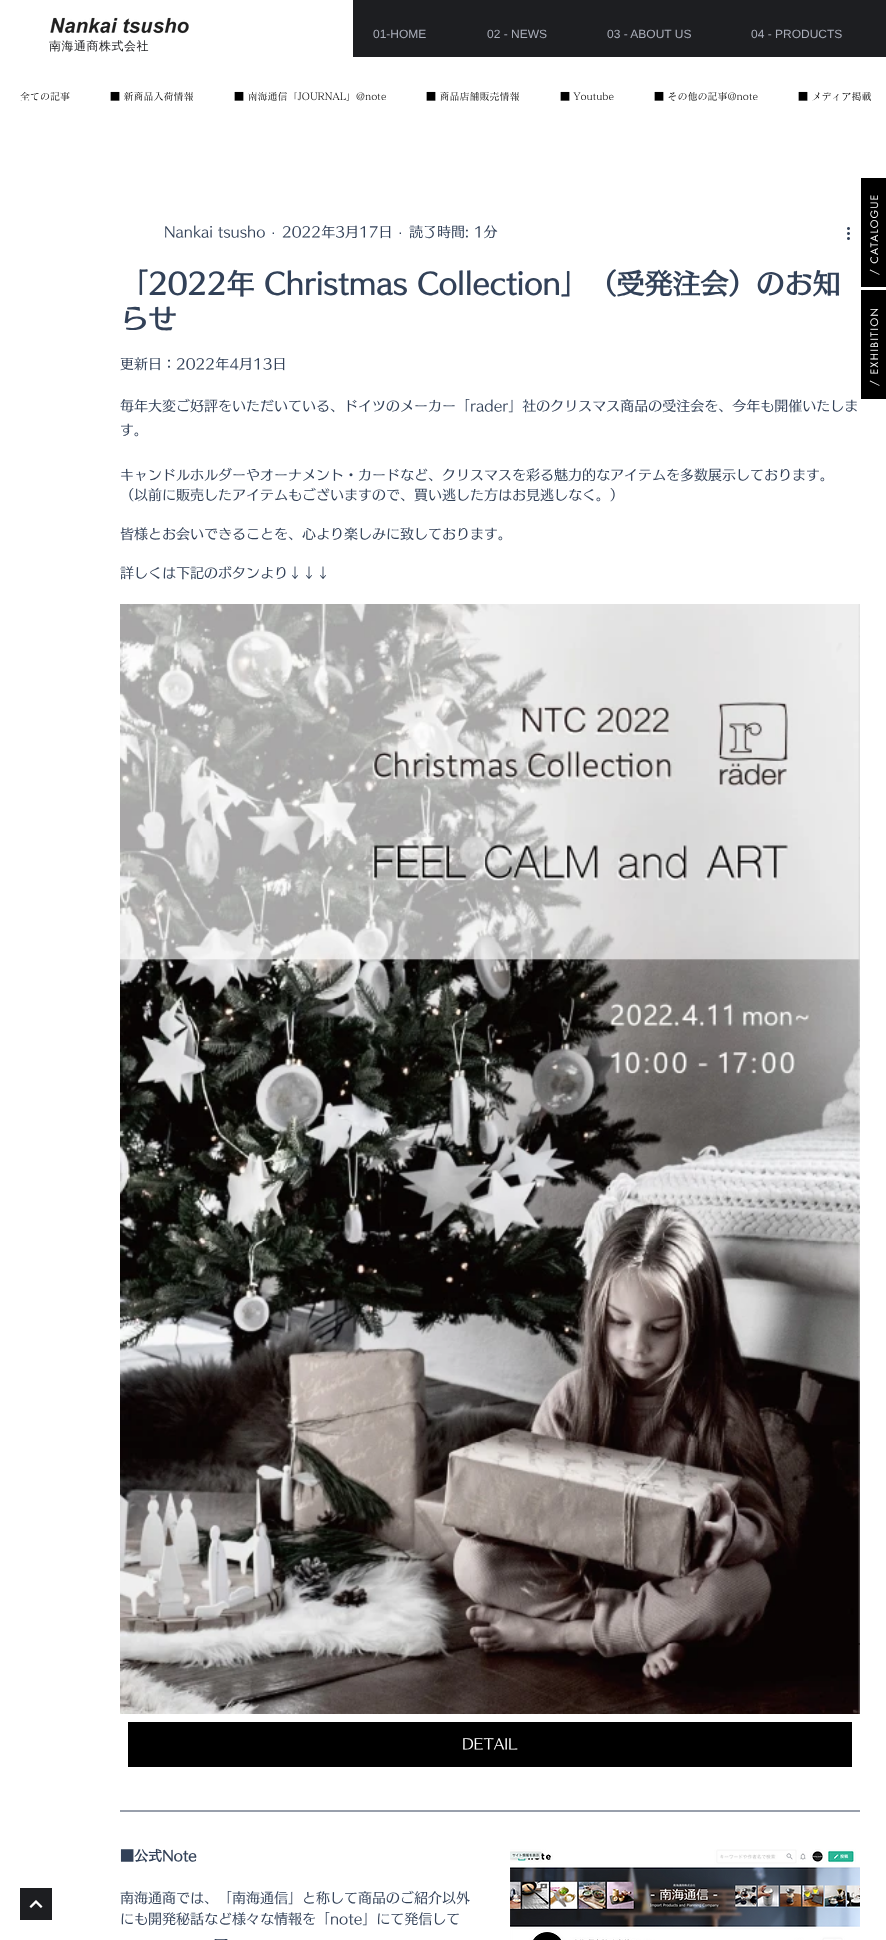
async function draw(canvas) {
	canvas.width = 886;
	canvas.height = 1940;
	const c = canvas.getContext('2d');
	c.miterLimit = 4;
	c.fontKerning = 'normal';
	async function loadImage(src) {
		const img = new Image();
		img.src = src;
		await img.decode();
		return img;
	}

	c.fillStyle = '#fff';
	c.fillRect(0, 0, 886, 1940);
	c.fillStyle = '#1d1e21';
	c.fillRect(353, 0, 533, 57);
	c.font = '12px Liberation Sans';
	c.fillStyle = '#aaaeba';
	for (const [text, x, y] of [
		['01-HOME', 373, 38],
		['02 - NEWS', 487, 38],
		['03 - ABOUT US', 607, 38],
		['04 - PRODUCTS', 751, 38],
	]) {
		c.fillText(text, x, y);
	}
	c.drawImage(await loadImage('img1.png'), 50, 17, 139, 17);
	c.letterSpacing = '0.5px';
	c.font = '500 12px WenQuanYi Zen Hei';
	c.fillStyle = '#1d1e21';
	c.fillText('南海通商株式会社', 49, 50);
	c.letterSpacing = '0px';
	c.font = '500 10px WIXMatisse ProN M';
	c.fillStyle = '#000';
	for (const [text, x, y] of [
		['全ての記事', 20, 100],
		['■ 新商品入荷情報', 110, 100],
		['■ 南海通信「JOURNAL」@note', 234, 100],
		['■ 商品店舗販売情報', 426, 100],
		['■ Youtube', 560, 100],
		['■ その他の記事@note', 654, 100],
		['■ メディア掲載', 798, 100],
	]) {
		c.fillText(text, x, y);
	}
	c.font = '500 14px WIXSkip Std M';
	c.fillStyle = '#324158';
	c.fillText('Nankai tsusho', 164, 237);
	c.font = '14px Liberation Sans';
	c.fillText('·', 271, 237);
	c.font = '500 14px WIXSkip Std M';
	c.fillText('2022年3月17日', 282, 237);
	c.font = '14px Liberation Sans';
	c.fillText('·', 398, 237);
	c.font = '500 14px WIXSkip Std M';
	c.fillText('読了時間: 1分', 409, 237);
	c.drawImage(await loadImage('img2.png'), 847, 227, 3, 13);
	c.font = 'bold 28px WIXSkip Std M';
	c.fillText('「2022年 Christmas Collection」（受発注会）のお知', 120, 294);
	c.fillText('らせ', 120, 329);
	c.font = '500 14px WIXSkip Std M';
	for (const [text, x, y] of [
		['更新日：2022年4月13日', 120, 369],
		['毎年大変ご好評をいただいている、ドイツのメーカー「rader」社のクリスマス商品の受注会を、今年も開催いたしま', 120, 411],
		['す。', 120, 435],
		['キャンドルホルダーやオーナメント・カードなど、クリスマスを彩る魅力的なアイテムを多数展示しております。', 120, 480],
		['（以前に販売したアイテムもございますので、買い逃した方はお見逃しなく。）', 120, 500],
		['皆様とお会いできることを、心より楽しみに致しております。', 120, 539],
		['詳しくは下記のボタンより↓↓↓', 120, 578],
	]) {
		c.fillText(text, x, y);
	}
	c.drawImage(await loadImage('img3.png'), 120, 604, 740, 1110);
	c.fillStyle = '#000';
	c.fillRect(128, 1722, 724, 45);
	c.fillStyle = '#fff';
	c.fillText('DETAIL', 462, 1749);
	c.beginPath();
	c.moveTo(120, 1811);
	c.lineTo(860, 1811);
	c.strokeStyle = '#324158';
	c.stroke();
	c.font = 'bold 14px WIXSkip Std M';
	c.fillStyle = '#324158';
	c.fillText('■公式Note', 120, 1861);
	c.font = '500 14px WIXSkip Std M';
	for (const [text, x, y] of [
		['南海通商では、「南海通信」と称して商品のご紹介以外', 120, 1903],
		['にも開発秘話など様々な情報を「note」にて発信して', 120, 1924],
		['一', 214, 1945],
	]) {
		c.fillText(text, x, y);
	}
	c.drawImage(await loadImage('img4.png'), 510, 1849, 350, 91);
	c.fillStyle = '#000';
	c.fillRect(861, 178, 25, 109);
	c.letterSpacing = '1.5px';
	c.font = '10px futura';
	c.fillStyle = '#fff';
	c.save();
	c.translate(878, 275);
	c.rotate(-90 * Math.PI / 180);
	c.fillText('/ CATALOGUE', 0, 0);
	c.restore();
	c.fillStyle = '#000';
	c.fillRect(861, 290, 25, 109);
	c.fillStyle = '#fff';
	c.save();
	c.translate(878, 386);
	c.rotate(-90 * Math.PI / 180);
	c.fillText('/ EXHIBITION', 0, 0);
	c.restore();
	c.fillStyle = '#1d1e21';
	c.fillRect(20, 1888, 32, 32);
	c.drawImage(await loadImage('img5.png'), 29, 1900, 14, 8);
}

draw(document.querySelector('canvas'));
